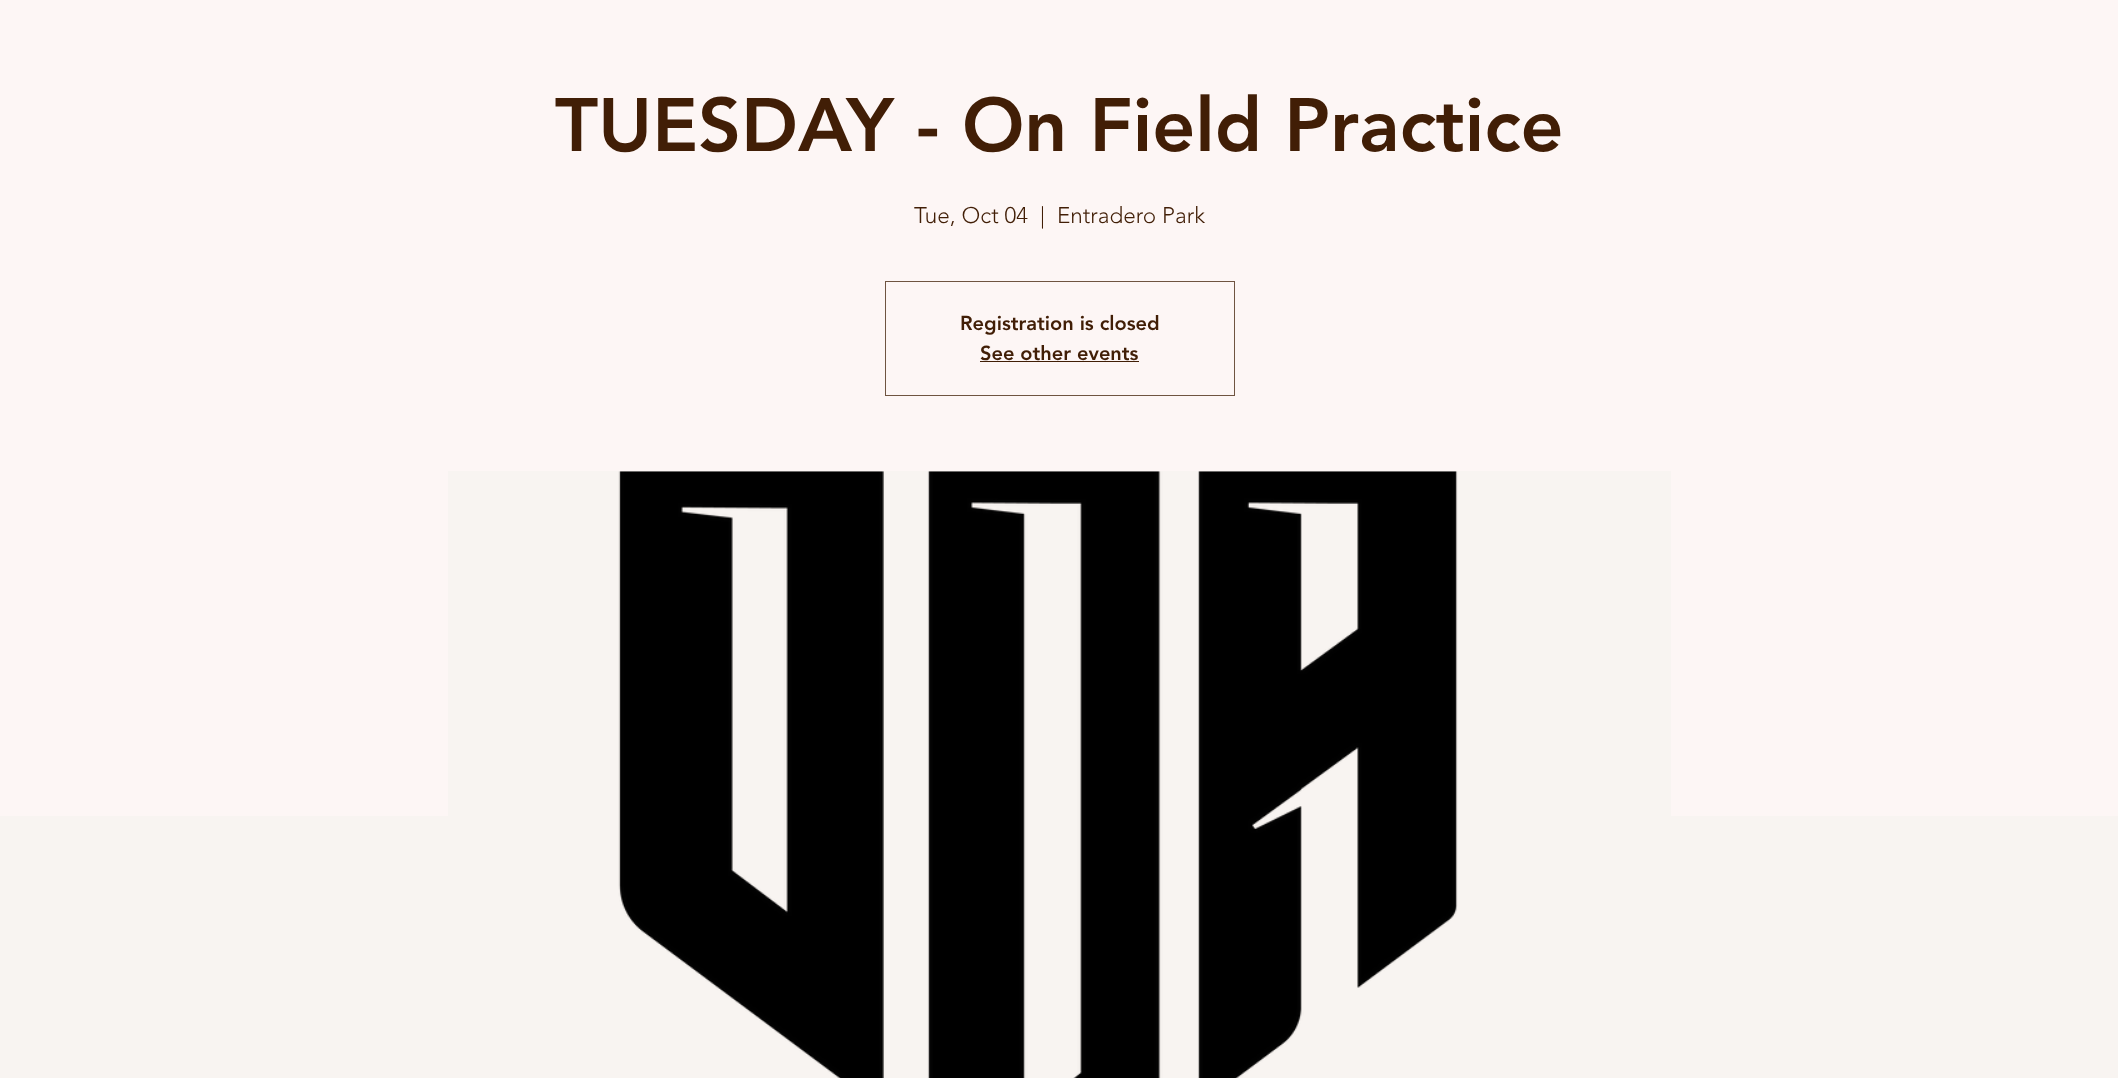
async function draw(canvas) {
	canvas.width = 2118;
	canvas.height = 1078;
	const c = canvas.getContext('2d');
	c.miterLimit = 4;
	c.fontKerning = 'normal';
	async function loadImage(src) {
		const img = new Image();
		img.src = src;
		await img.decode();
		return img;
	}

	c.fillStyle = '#f8f4f1';
	c.fillRect(0, 0, 2118, 1078);
	c.fillStyle = '#fdf6f5';
	c.fillRect(0, 0, 2118, 816);
	c.font = '900 75px "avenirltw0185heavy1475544"';
	c.fillStyle = '#411e06';
	c.fillText('TUESDAY - On Field Practice', 555, 151);
	c.font = '300 22.5px "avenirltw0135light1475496"';
	for (const [text, x, y] of [
		['Tue, Oct 04', 914, 223],
		['|', 1040, 223],
		['Entradero Park', 1057, 223],
	]) {
		c.fillText(text, x, y);
	}
	c.strokeStyle = '#6f5441';
	c.strokeRect(885.5, 281.5, 349, 114);
	c.font = '900 20px "avenirltw0185heavy1475544"';
	c.fillText('Registration is closed', 960, 330);
	c.fillText('See other events', 980, 360);
	c.fillRect(980, 361, 159, 1);
	c.fillStyle = '#f8f4f1';
	c.fillRect(448, 471, 1223, 345);
	c.drawImage(await loadImage('img1.png'), 618, 471, 840, 607);
}

draw(document.querySelector('canvas'));
